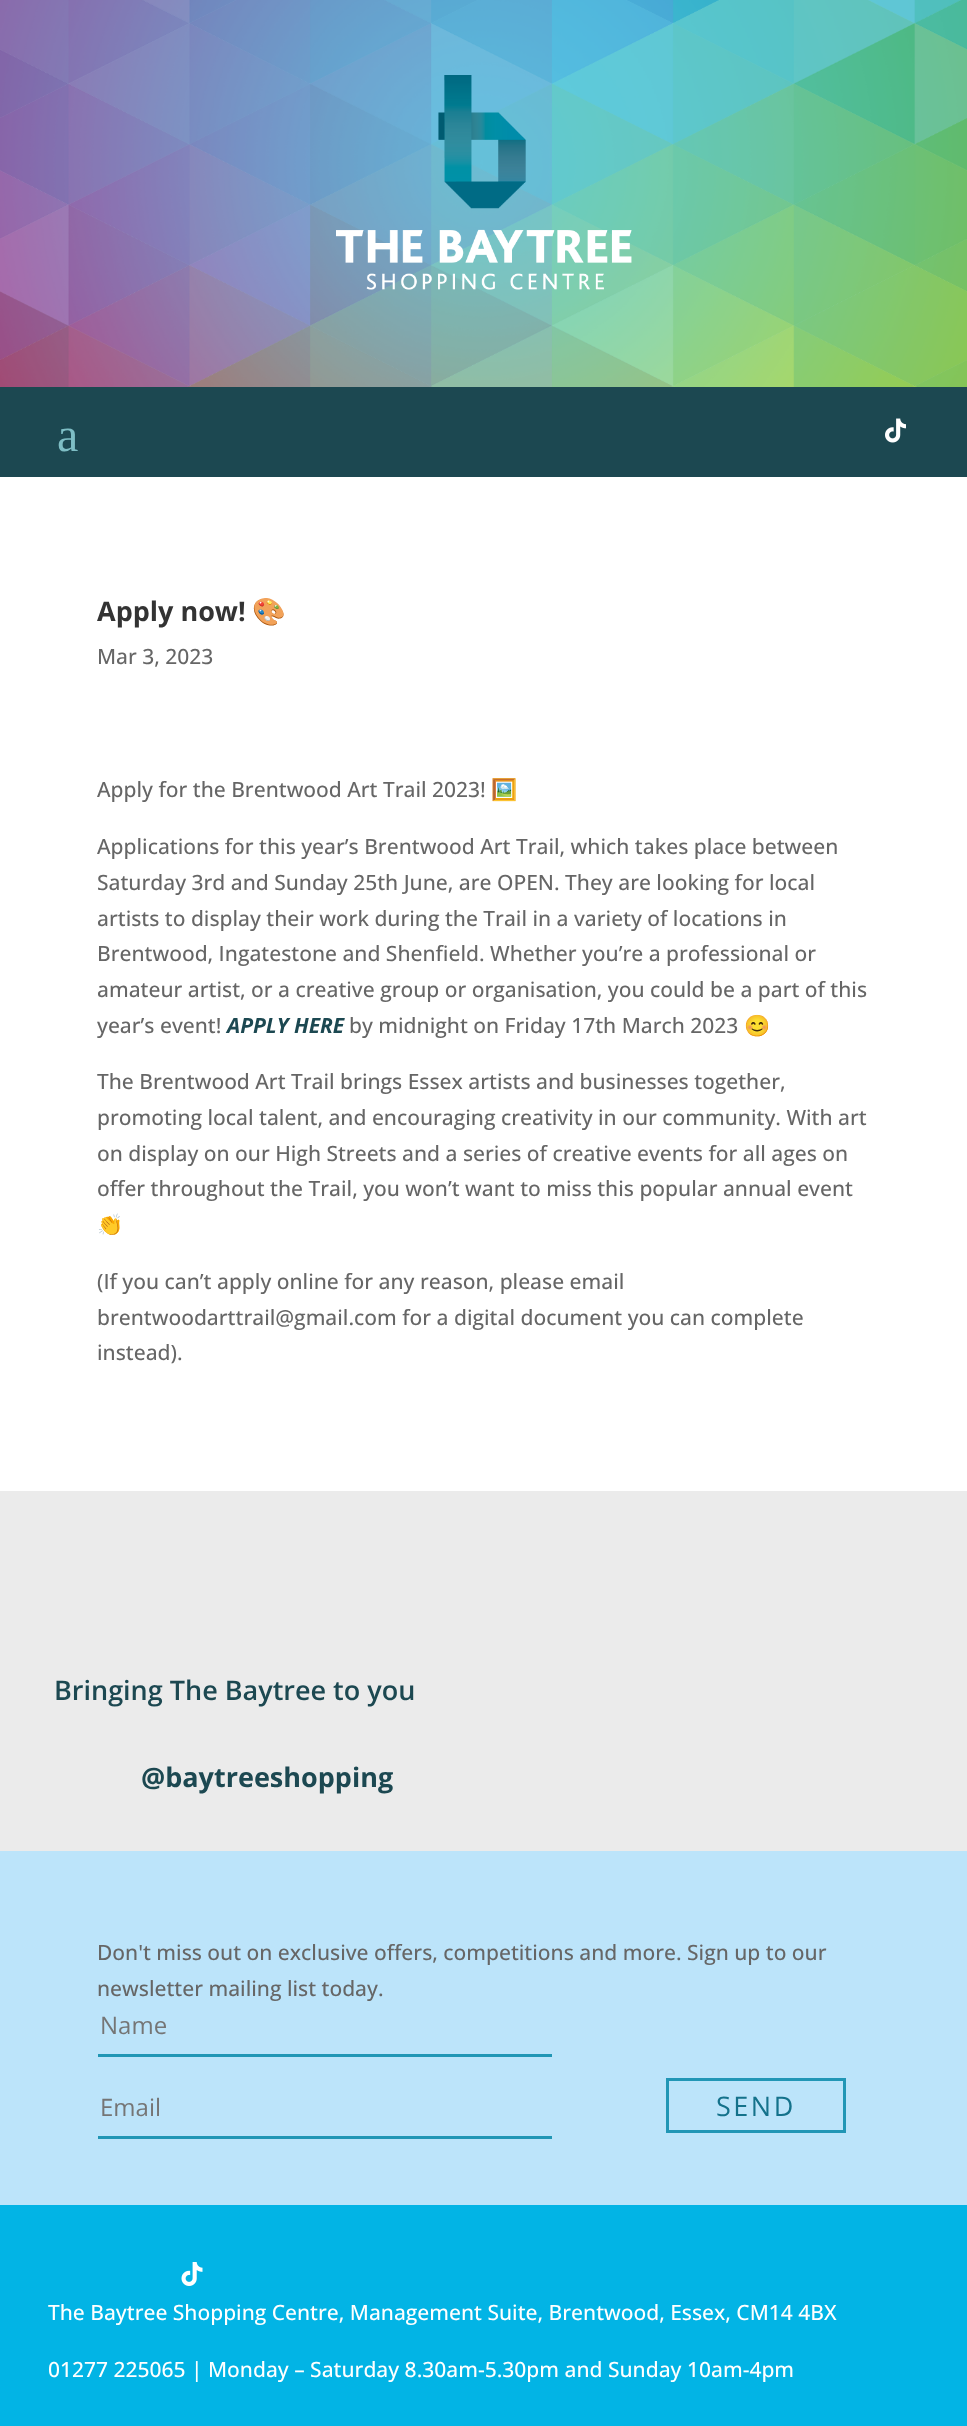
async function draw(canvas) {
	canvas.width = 967;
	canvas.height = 2426;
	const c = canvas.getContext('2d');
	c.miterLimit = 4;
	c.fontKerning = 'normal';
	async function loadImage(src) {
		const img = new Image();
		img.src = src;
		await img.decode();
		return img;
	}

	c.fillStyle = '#ebebeb';
	c.fillRect(0, 0, 967, 2426);
	c.drawImage(await loadImage('img1.png'), 0, 0, 967, 387);
	c.drawImage(await loadImage('img2.png'), 336, 75, 296, 215);
	c.fillStyle = '#1c4851';
	c.fillRect(0, 387, 967, 90);
	c.font = '48px Liberation Serif';
	c.fillStyle = '#7ebec5';
	c.fillText('a', 57, 451);
	c.drawImage(await loadImage('img3.png'), 885, 418, 21, 25);
	c.fillStyle = '#fff';
	c.fillRect(0, 477, 967, 1014);
	c.font = 'bold 27px Open Sans';
	c.fillStyle = '#333';
	c.fillText('Apply now!', 97, 621);
	c.font = 'bold 27px Noto Color Emoji';
	c.fillText('🎨', 252, 621);
	c.font = '500 21px Open Sans';
	c.fillStyle = '#666';
	c.fillText('Mar 3, 2023', 97, 664);
	c.fillText('Apply for the Brentwood Art Trail 2023!', 97, 797);
	c.font = '21px Noto Color Emoji';
	c.fillText('🖼️', 491, 797);
	c.font = '500 21px Open Sans';
	for (const [text, x, y] of [
		['Applications for this year’s Brentwood Art Trail, which takes place between', 97, 854],
		['Saturday 3rd and Sunday 25th June, are OPEN. They are looking for local', 97, 890],
		['artists to display their work during the Trail in a variety of locations in', 97, 926],
		['Brentwood, Ingatestone and Shenfield. Whether you’re a professional or', 97, 961],
		['amateur artist, or a creative group or organisation, you could be a part of this', 97, 997],
		['year’s event!', 97, 1033],
	]) {
		c.fillText(text, x, y);
	}
	c.font = 'italic bold 21px Open Sans';
	c.fillStyle = '#1c4851';
	c.fillText('APPLY HERE', 227, 1033);
	c.font = '500 21px Open Sans';
	c.fillStyle = '#666';
	c.fillText('by midnight on Friday 17th March 2023', 349, 1033);
	c.font = '21px Noto Color Emoji';
	c.fillText('😊', 744, 1033);
	c.font = '500 21px Open Sans';
	for (const [text, x, y] of [
		['The Brentwood Art Trail brings Essex artists and businesses together,', 97, 1089],
		['promoting local talent, and encouraging creativity in our community. With art', 97, 1125],
		['on display on our High Streets and a series of creative events for all ages on', 97, 1161],
		['offer throughout the Trail, you won’t want to miss this popular annual event', 97, 1196],
	]) {
		c.fillText(text, x, y);
	}
	c.font = '21px Noto Color Emoji';
	c.fillText('👏', 97, 1232);
	c.font = '500 21px Open Sans';
	for (const [text, x, y] of [
		['(If you can’t apply online for any reason, please email', 97, 1289],
		['brentwoodarttrail@gmail.com for a digital document you can complete', 97, 1325],
		['instead).', 97, 1360],
	]) {
		c.fillText(text, x, y);
	}
	c.font = '600 27px Open Sans';
	c.fillStyle = '#1c4851';
	c.fillText('Bringing The Baytree to you', 54, 1700);
	c.font = 'bold 27px Open Sans';
	c.fillText('@baytreeshopping', 141, 1787);
	c.fillStyle = '#bce4fa';
	c.fillRect(0, 1851, 967, 354);
	c.font = '500 21px Open Sans';
	c.fillStyle = '#666';
	c.fillText('Don\'t miss out on exclusive offers, competitions and more. Sign up to our', 97, 1960);
	c.fillText('newsletter mailing list today.', 97, 1996);
	c.fillStyle = '#2196b5';
	c.fillRect(98, 2054, 454, 3);
	c.font = '24px Open Sans';
	c.fillStyle = '#757575';
	c.fillText('Name', 100, 2034);
	c.fillStyle = '#2196b5';
	c.fillRect(98, 2136, 454, 3);
	c.fillStyle = '#757575';
	c.fillText('Email', 100, 2116);
	c.strokeStyle = '#2196b5';
	c.lineWidth = 3;
	c.strokeRect(667.5, 2079.5, 177, 52);
	c.letterSpacing = '2.5px';
	c.font = '27px Open Sans';
	c.fillStyle = '#14728b';
	c.fillText('SEND', 716, 2116);
	c.fillStyle = '#02b4e5';
	c.fillRect(0, 2205, 967, 221);
	c.drawImage(await loadImage('img4.png'), 181, 2262, 22, 24);
	c.letterSpacing = '0px';
	c.font = '500 21px Open Sans';
	c.fillStyle = '#fff';
	c.fillText('The Baytree Shopping Centre, Management Suite, Brentwood, Essex, CM14 4BX', 48, 2320);
	c.fillText('01277 225065 | Monday – Saturday 8.30am-5.30pm and Sunday 10am-4pm', 48, 2377);
}

draw(document.querySelector('canvas'));
